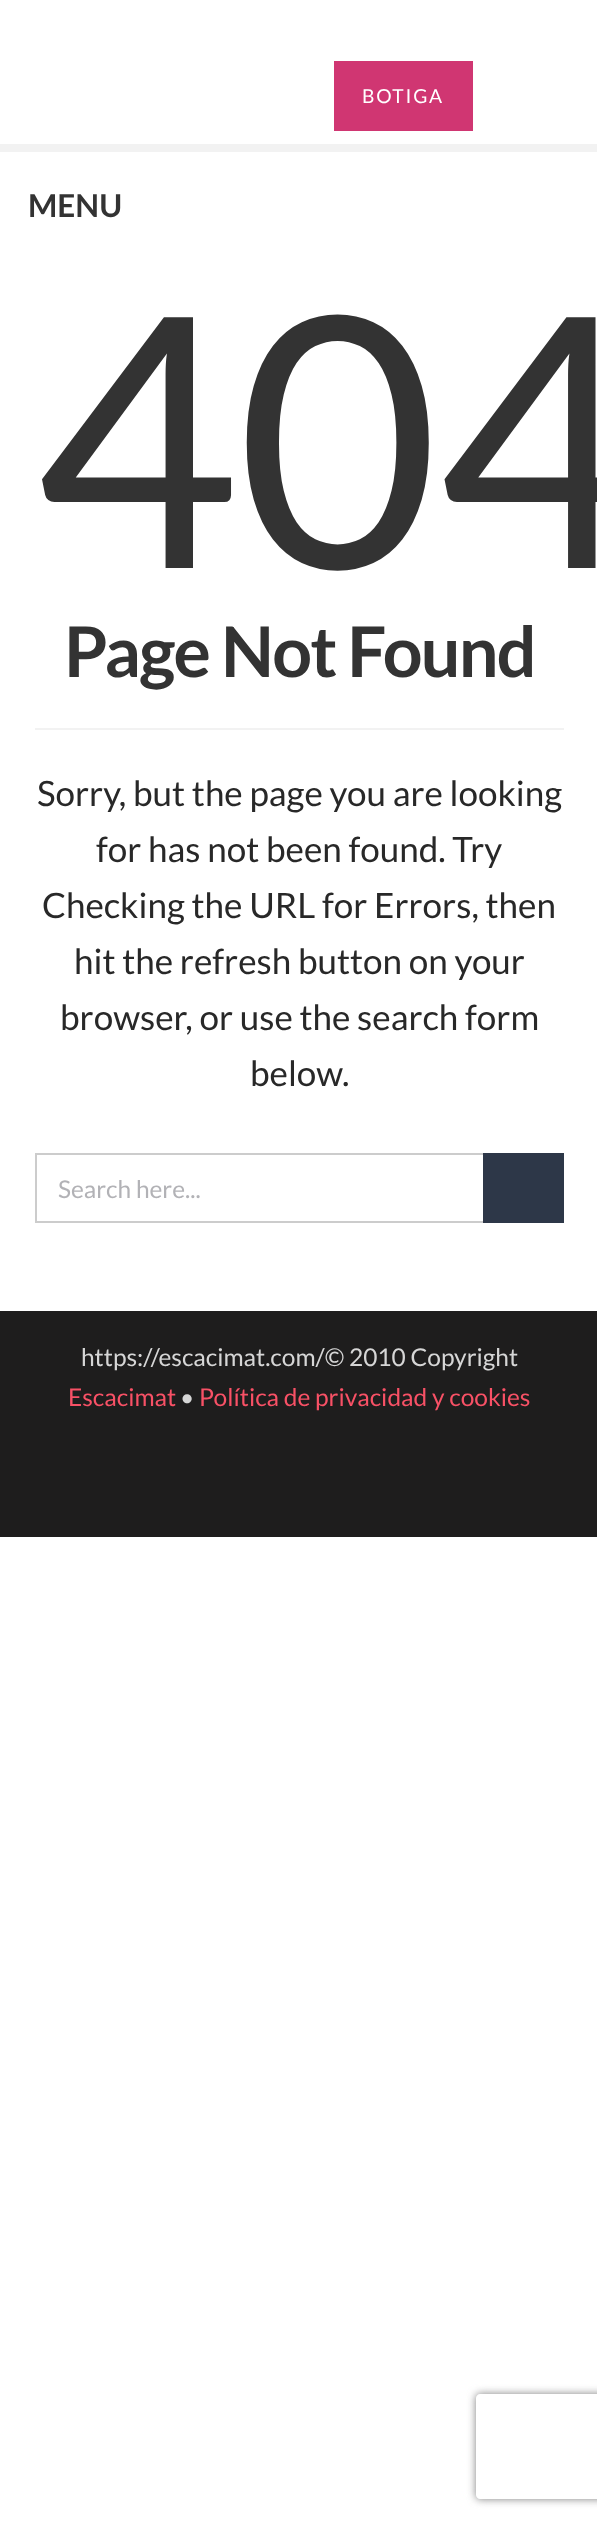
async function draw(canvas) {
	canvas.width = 597;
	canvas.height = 2522;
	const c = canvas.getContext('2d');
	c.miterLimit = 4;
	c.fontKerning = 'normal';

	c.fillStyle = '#fff';
	c.fillRect(0, 0, 597, 2522);
	c.fillStyle = '#f2f2f2';
	c.fillRect(0, 144, 597, 8);
	c.fillStyle = '#d03672';
	c.fillRect(334, 61, 139, 70);
	c.letterSpacing = '1.75px';
	c.font = '19.25px Lato';
	c.fillStyle = '#fff';
	c.fillText('BOTIGA', 362, 103);
	c.letterSpacing = '0px';
	c.font = 'bold 31.5px Lato';
	c.fillStyle = '#333';
	c.fillText('MENU', 28, 217);
	c.fillStyle = '#f2f2f2';
	c.fillRect(35, 728, 529, 2);
	c.letterSpacing = '-1.75px';
	c.font = '350px Lato';
	c.fillStyle = '#333';
	c.fillText('404', 35, 568);
	c.font = 'bold 70px Lato';
	c.fillText('Page Not Found', 64, 677);
	c.letterSpacing = '0px';
	c.font = '35px Lato';
	c.fillStyle = '#282828';
	for (const [text, x, y] of [
		['Sorry, but the page you are looking', 37, 806],
		['for has not been found. Try', 96, 862],
		['Checking the URL for Errors, then', 42, 918],
		['hit the refresh button on your', 74, 974],
		['browser, or use the search form', 60, 1030],
		['below.', 250, 1086],
	]) {
		c.fillText(text, x, y);
	}
	c.strokeStyle = '#ccc';
	c.lineWidth = 2;
	c.strokeRect(36, 1154, 527, 68);
	c.font = '24.5px Lato';
	c.fillStyle = '#b2b2b6';
	c.fillText('Search here...', 58, 1198);
	c.fillStyle = '#2d3748';
	c.fillRect(483, 1153, 81, 70);
	c.fillStyle = '#1e1d1d';
	c.fillRect(0, 1311, 597, 226);
	c.fillStyle = '#d6d6d6';
	c.fillText('https://escacimat.com/© 2010 Copyright', 81, 1366);
	c.fillStyle = '#f85166';
	c.fillText('Escacimat', 68, 1406);
	c.fillStyle = '#d6d6d6';
	c.fillText('•', 180, 1406);
	c.fillStyle = '#f85166';
	c.fillText('Política de privacidad y cookies', 199, 1406);
	c.save();
	c.beginPath();
	c.moveTo(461, 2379);
	c.lineTo(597, 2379);
	c.lineTo(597, 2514);
	c.lineTo(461, 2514);
	c.closePath();
	c.moveTo(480, 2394);
	c.lineTo(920, 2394);
	c.bezierCurveTo(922, 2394, 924, 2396, 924, 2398);
	c.lineTo(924, 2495);
	c.bezierCurveTo(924, 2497, 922, 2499, 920, 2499);
	c.lineTo(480, 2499);
	c.bezierCurveTo(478, 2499, 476, 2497, 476, 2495);
	c.lineTo(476, 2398);
	c.bezierCurveTo(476, 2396, 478, 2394, 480, 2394);
	c.closePath();
	c.clip('evenodd');
	c.fillStyle = '#808080';
	c.filter = 'blur(4.5px)';
	c.beginPath();
	c.roundRect(476, 2394, 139, 105, 4);
	c.fill();
	c.filter = 'none';
	c.restore();
}

draw(document.querySelector('canvas'));
